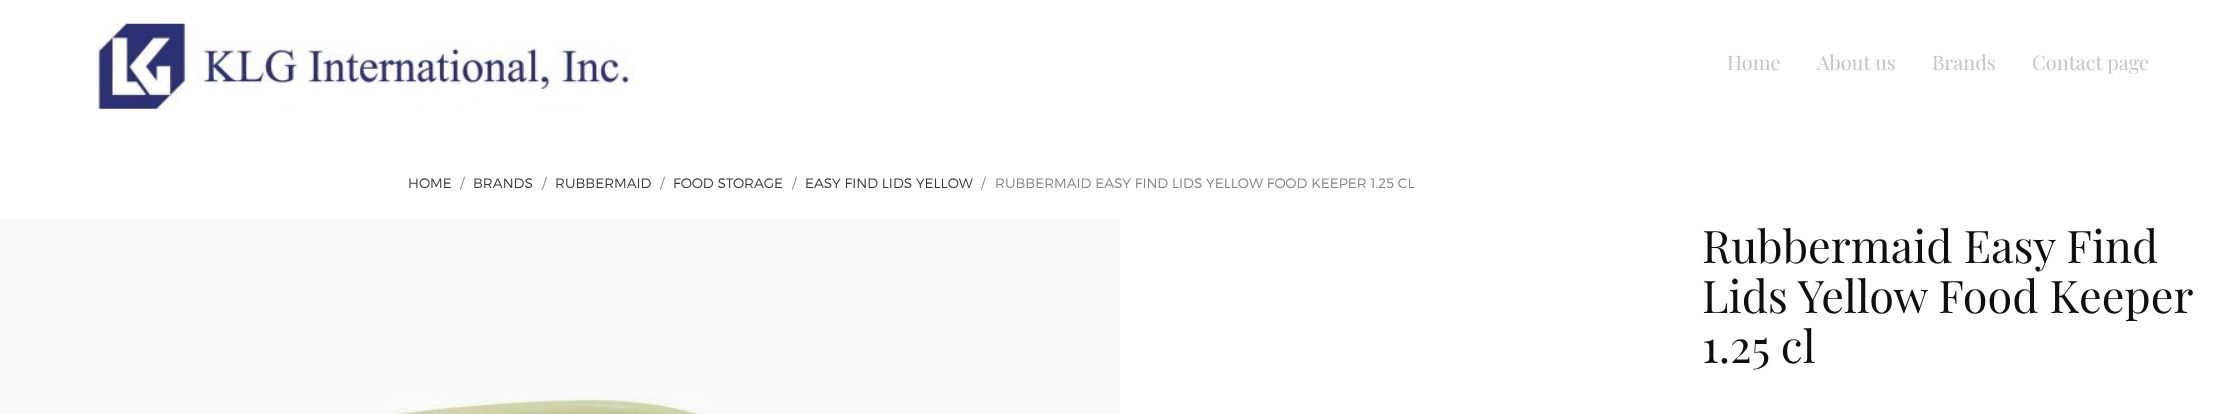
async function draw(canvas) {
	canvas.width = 2240;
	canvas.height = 414;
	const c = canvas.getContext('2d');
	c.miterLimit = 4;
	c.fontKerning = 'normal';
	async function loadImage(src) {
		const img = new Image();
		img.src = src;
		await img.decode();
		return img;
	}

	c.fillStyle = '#fff';
	c.fillRect(0, 0, 2240, 414);
	c.fillStyle = '#f9f9f9';
	c.fillRect(0, 219, 1120, 195);
	c.drawImage(await loadImage('img1.png'), 96, 23, 541, 86);
	c.font = '20px Playfair Display';
	c.fillStyle = '#c5c5c5';
	for (const [text, x, y] of [
		['Home', 1727, 70],
		['About us', 1817, 70],
		['Brands', 1932, 70],
		['Contact page', 2032, 70],
	]) {
		c.fillText(text, x, y);
	}
	c.font = '300 13.75px Montserrat';
	c.fillStyle = '#373737';
	c.fillText('HOME', 408, 188);
	c.fillStyle = '#838383';
	c.fillText('/', 460, 188);
	c.fillStyle = '#373737';
	c.fillText('BRANDS', 473, 188);
	c.fillStyle = '#838383';
	c.fillText('/', 542, 188);
	c.fillStyle = '#373737';
	c.fillText('RUBBERMAID', 555, 188);
	c.fillStyle = '#838383';
	c.fillText('/', 660, 188);
	c.fillStyle = '#373737';
	c.fillText('FOOD STORAGE', 673, 188);
	c.fillStyle = '#838383';
	c.fillText('/', 792, 188);
	c.fillStyle = '#373737';
	c.fillText('EASY FIND LIDS YELLOW', 805, 188);
	c.fillStyle = '#838383';
	c.fillText('/', 981, 188);
	c.fillText('RUBBERMAID EASY FIND LIDS YELLOW FOOD KEEPER 1.25 CL', 995, 188);
	c.font = '45px Playfair Display';
	c.fillStyle = '#0f0f0f';
	for (const [text, x, y] of [
		['Rubbermaid Easy Find', 1702, 263],
		['Lids Yellow Food Keeper', 1702, 313],
		['1.25 cl', 1702, 363],
	]) {
		c.fillText(text, x, y);
	}
	c.drawImage(await loadImage('img2.png'), 386, 398, 321, 16);
}

draw(document.querySelector('canvas'));
